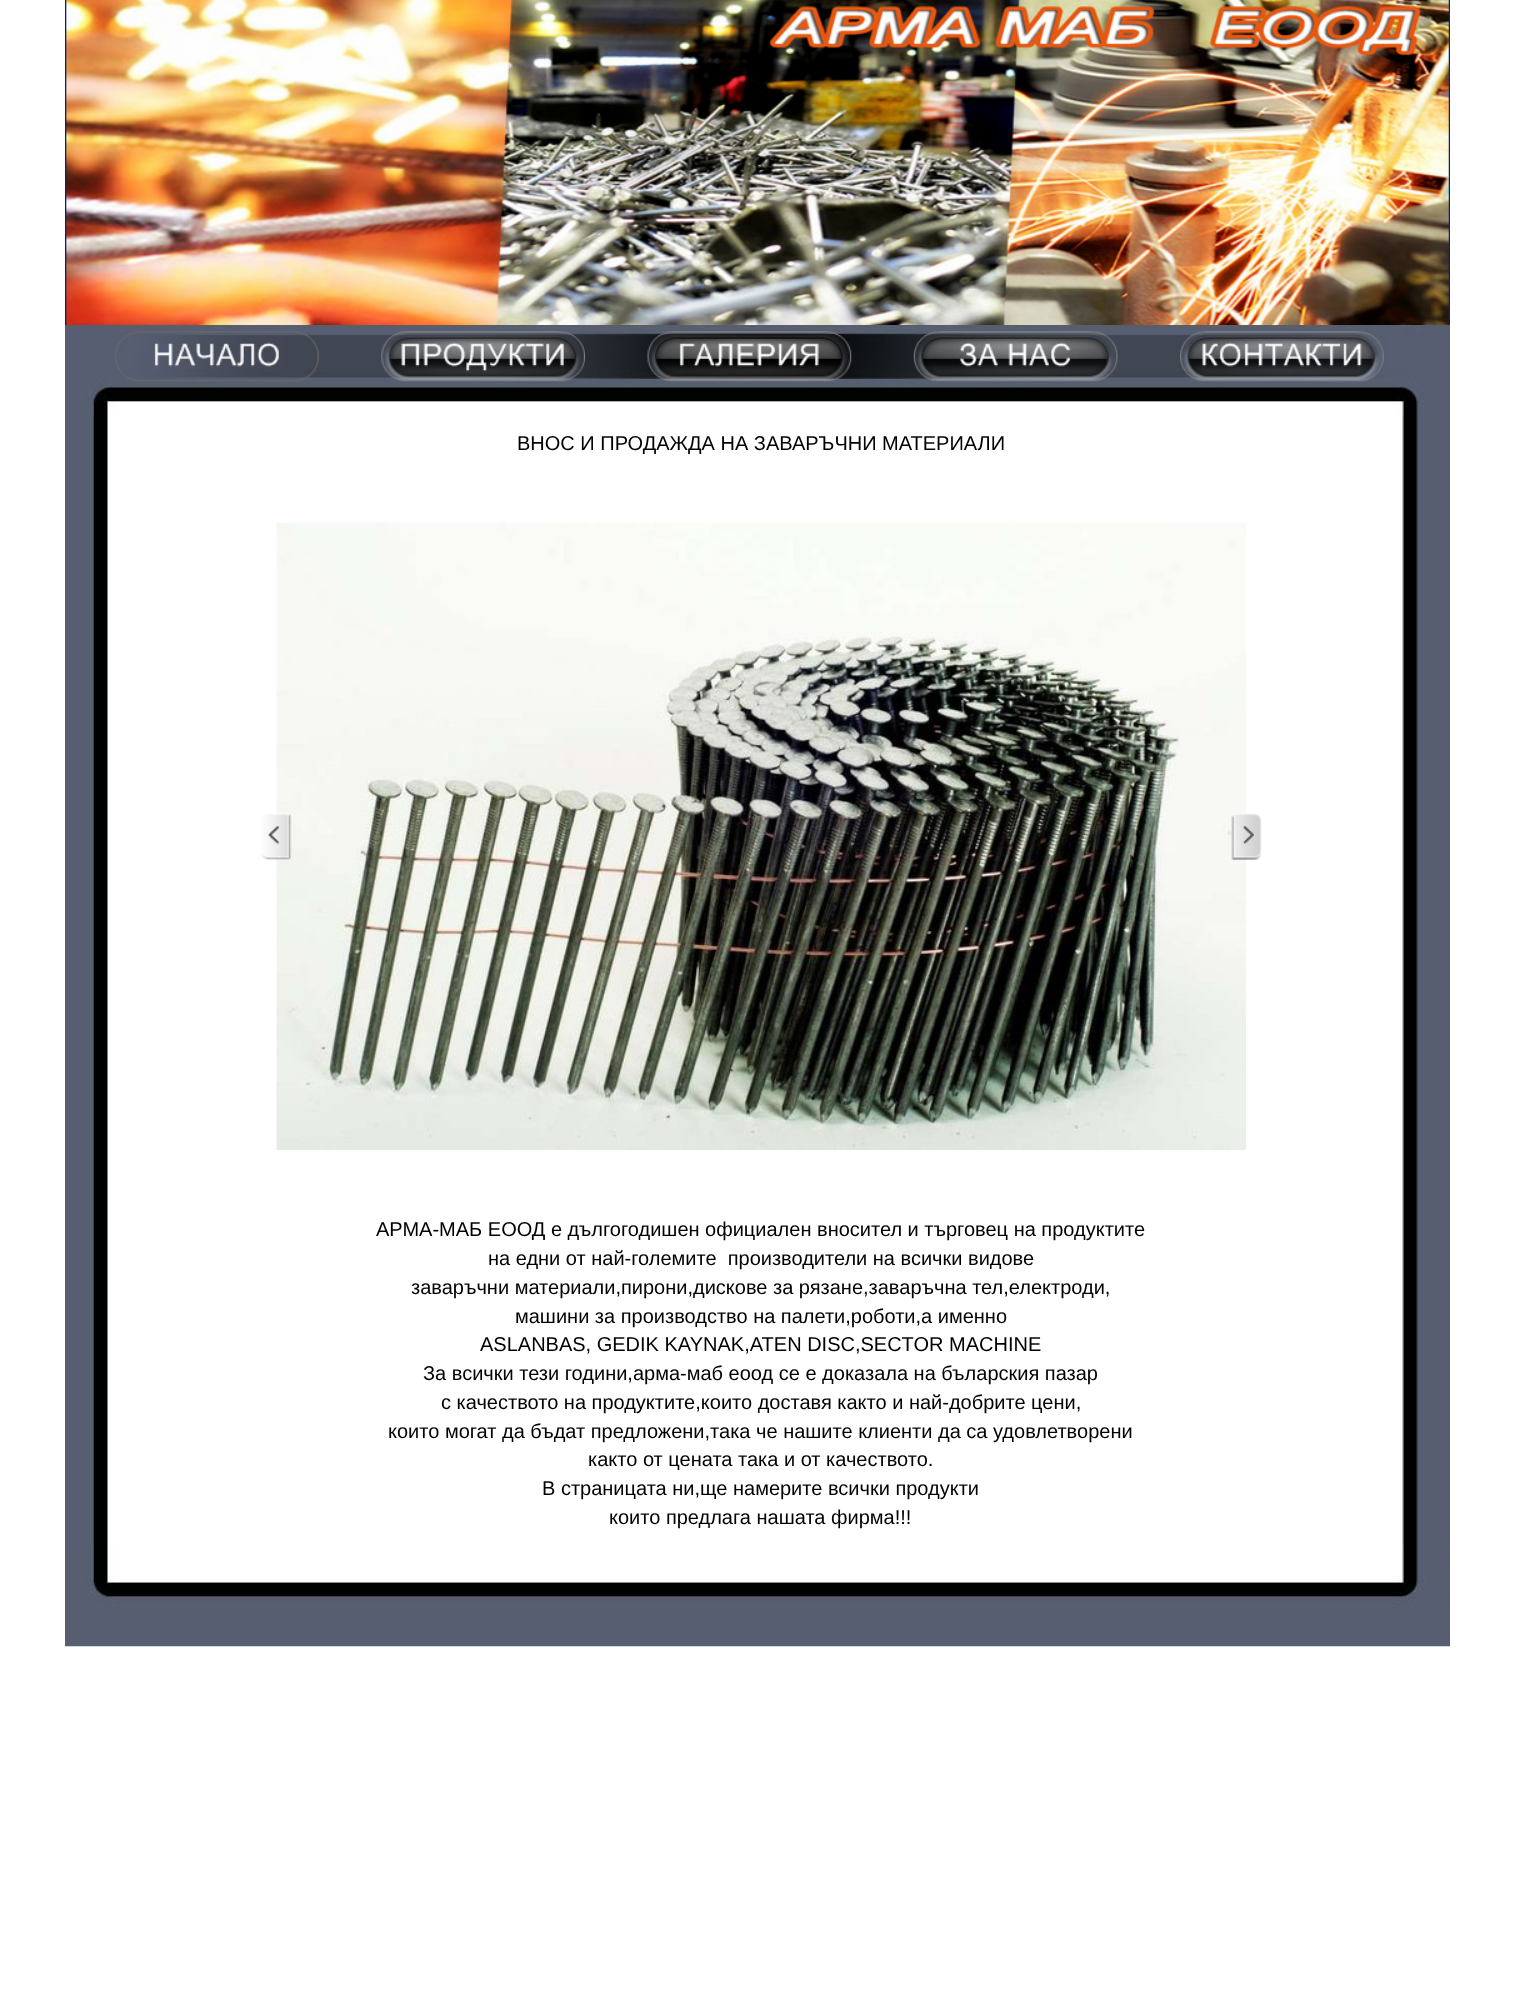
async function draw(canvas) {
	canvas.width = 1514;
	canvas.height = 2001;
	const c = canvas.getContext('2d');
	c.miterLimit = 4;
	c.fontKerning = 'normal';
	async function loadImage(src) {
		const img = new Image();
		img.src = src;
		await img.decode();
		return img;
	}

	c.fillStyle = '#fff';
	c.fillRect(0, 0, 1514, 2001);
	c.drawImage(await loadImage('img1.png'), 65, 0, 1385, 325);
	c.drawImage(await loadImage('img2.png'), 65, 325, 1385, 90);
	c.drawImage(await loadImage('img3.png'), 115, 331, 204, 51);
	c.drawImage(await loadImage('img4.png'), 381, 331, 204, 51);
	c.drawImage(await loadImage('img5.png'), 647, 331, 205, 51);
	c.drawImage(await loadImage('img6.png'), 913, 331, 205, 51);
	c.drawImage(await loadImage('img7.png'), 1180, 331, 204, 51);
	c.drawImage(await loadImage('img8.png'), 65, 415, 1385, 1130);
	c.font = '20px Liberation Sans';
	c.fillStyle = '#000';
	c.fillText('ВНОС И ПРОДАЖДА НА ЗАВАРЪЧНИ МАТЕРИАЛИ', 517, 450);
	c.drawImage(await loadImage('img9.png'), 276, 522, 970, 628);
	c.drawImage(await loadImage('img10.png'), 1231, 813, 31, 47);
	c.drawImage(await loadImage('img11.png'), 261, 814, 31, 46);
	for (const [text, x, y] of [
		['АРМА-МАБ ЕООД е дългогодишен официален вносител и търговец на продуктите', 376, 1236],
		['на едни от най-големите  производители на всички видове', 488, 1265],
		['заваръчни материали,пирони,дискове за рязане,заваръчна тел,електроди,', 411, 1294],
		['машини за производство на палети,роботи,а именно', 515, 1323],
		['ASLANBAS, GEDIK KAYNAK,ATEN DISC,SECTOR MACHINE', 480, 1351],
		['За всички тези години,арма-маб еоод се е доказала на бъларския пазар', 423, 1380],
		['с качеството на продуктите,които доставя както и най-добрите цени,', 441, 1409],
		['които могат да бъдат предложени,така че нашите клиенти да са удовлетворени', 388, 1438],
		['както от цената така и от качеството.', 588, 1466],
		['В страницата ни,ще намерите всички продукти', 542, 1495],
		['които предлага нашата фирма!!!', 609, 1524],
	]) {
		c.fillText(text, x, y);
	}
	c.drawImage(await loadImage('img12.png'), 65, 1545, 1385, 102);
}

draw(document.querySelector('canvas'));
